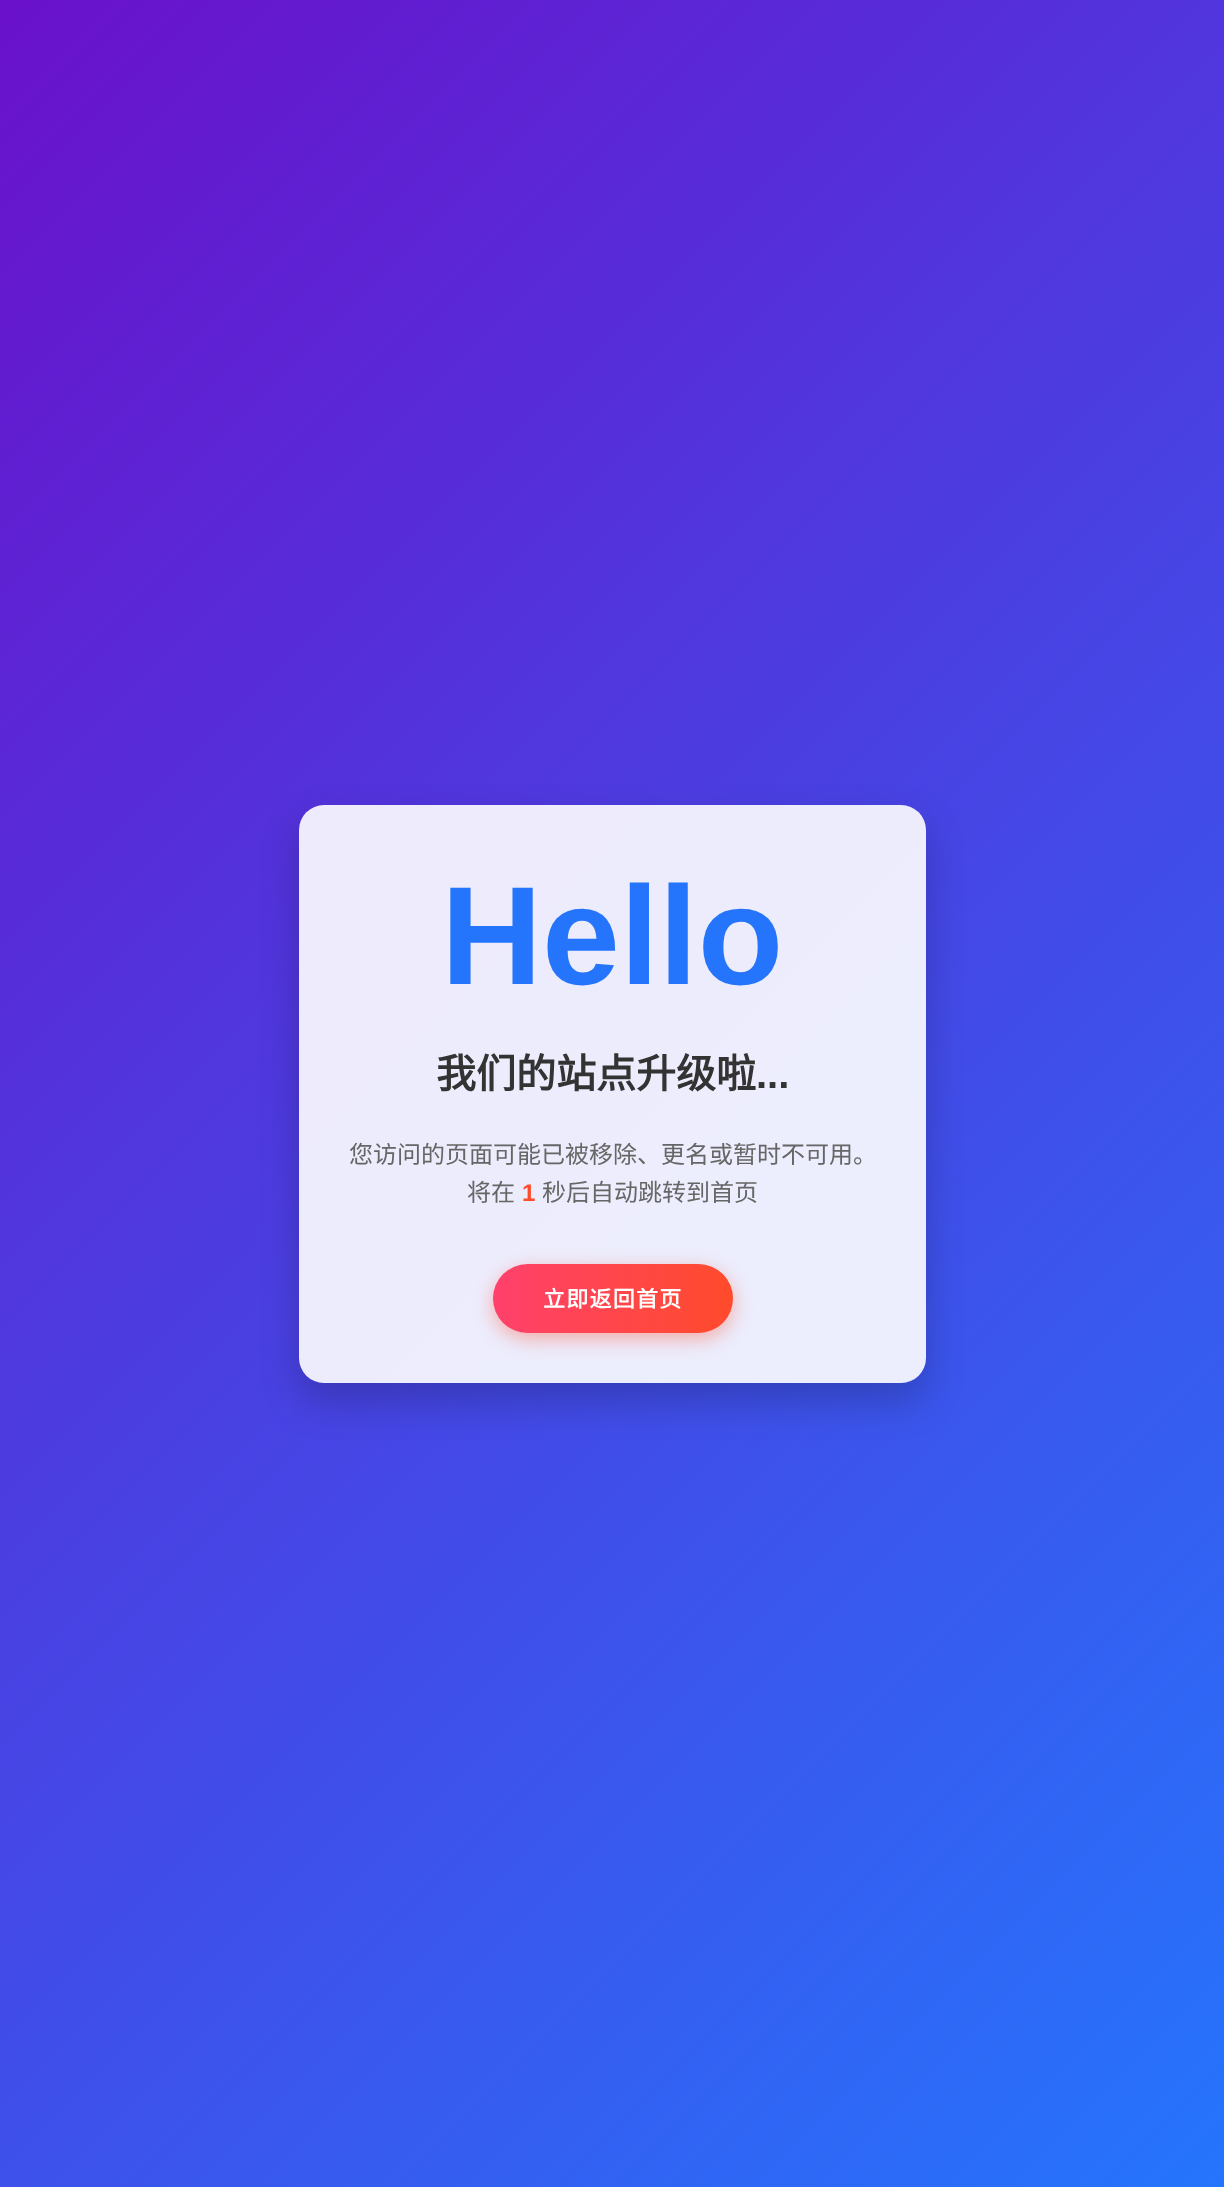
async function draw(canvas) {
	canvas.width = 1224;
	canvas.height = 2187;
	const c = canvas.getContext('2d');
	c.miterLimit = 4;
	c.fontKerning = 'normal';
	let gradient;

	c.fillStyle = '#fff';
	c.fillRect(0, 0, 1224, 2187);
	gradient = c.createLinearGradient(-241, 241, 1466, 1947);
	gradient.addColorStop(0, '#6a11cb');
	gradient.addColorStop(1, '#2575fc');
	c.fillStyle = gradient;
	c.fillRect(0, 0, 1224, 2187);
	c.save();
	c.beginPath();
	c.moveTo(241, 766);
	c.lineTo(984, 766);
	c.lineTo(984, 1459);
	c.lineTo(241, 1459);
	c.closePath();
	c.moveTo(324, 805);
	c.lineTo(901, 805);
	c.bezierCurveTo(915, 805, 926, 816, 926, 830);
	c.lineTo(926, 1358);
	c.bezierCurveTo(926, 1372, 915, 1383, 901, 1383);
	c.lineTo(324, 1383);
	c.bezierCurveTo(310, 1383, 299, 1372, 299, 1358);
	c.lineTo(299, 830);
	c.bezierCurveTo(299, 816, 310, 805, 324, 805);
	c.closePath();
	c.clip('evenodd');
	c.fillStyle = '#00000033';
	c.filter = 'blur(19px)';
	c.beginPath();
	c.roundRect(299, 824, 627, 577, 25);
	c.fill();
	c.filter = 'none';
	c.restore();
	c.fillStyle = '#ffffffe6';
	c.beginPath();
	c.roundRect(299, 805, 627, 578, 25);
	c.fill();
	c.font = 'bold 140px Liberation Sans';
	c.fillStyle = '#2575fc';
	c.fillText('Hello', 441, 984);
	c.font = 'bold 40px Noto Sans CJK SC';
	c.fillStyle = '#333';
	c.fillText('我们的站点升级啦', 436, 1088);
	c.font = 'bold 40px Liberation Sans';
	c.fillText('...', 756, 1088);
	c.font = '24px Noto Sans CJK SC';
	c.fillStyle = '#666';
	c.fillText('您访问的页面可能已被移除、更名或暂时不可用。', 349, 1163);
	c.fillText('将在', 467, 1201);
	c.font = 'bold 24px Liberation Sans';
	c.fillStyle = '#ff4b2b';
	c.fillText('1', 522, 1201);
	c.font = '24px Noto Sans CJK SC';
	c.fillStyle = '#666';
	c.fillText('秒后自动跳转到首页', 542, 1201);
	c.fillStyle = '#ff4b2b66';
	c.filter = 'blur(9.5px)';
	c.beginPath();
	c.roundRect(493, 1270, 240, 69, 34.5);
	c.fill();
	c.filter = 'none';
	gradient = c.createLinearGradient(493, 1298, 733, 1298);
	gradient.addColorStop(0, '#ff416c');
	gradient.addColorStop(1, '#ff4b2b');
	c.fillStyle = gradient;
	c.beginPath();
	c.roundRect(493, 1264, 240, 69, 34.5);
	c.fill();
	c.letterSpacing = '1.25px';
	c.font = 'bold 22px Noto Sans CJK SC';
	c.fillStyle = '#fff';
	c.fillText('立即返回首页', 543, 1307);
}

draw(document.querySelector('canvas'));
